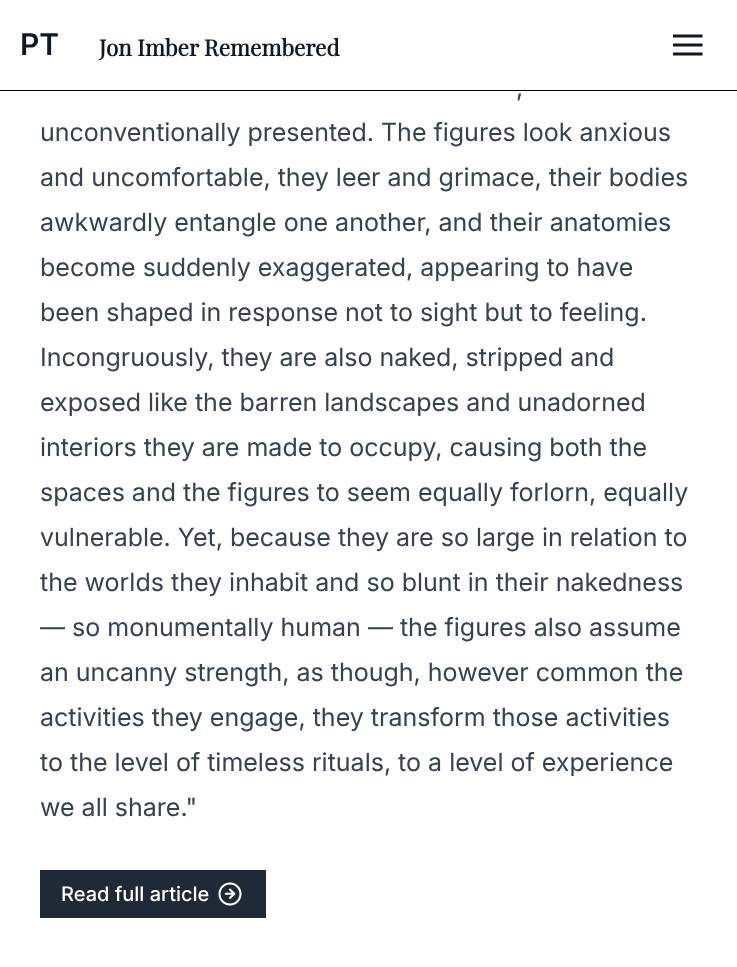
async function draw(canvas) {
	canvas.width = 737;
	canvas.height = 967;
	const c = canvas.getContext('2d');
	c.miterLimit = 4;
	c.fontKerning = 'normal';
	async function loadImage(src) {
		const img = new Image();
		img.src = src;
		await img.decode();
		return img;
	}

	c.fillStyle = '#fff';
	c.fillRect(0, 0, 737, 967);
	c.fillStyle = '#000';
	c.fillRect(0, 90, 737, 1);
	c.font = '600 30px Inter';
	c.fillStyle = '#111827';
	c.fillText('PT', 20, 55);
	c.font = 'bold 22.5px Playfair Display';
	c.fillText('Jon Imber Remembered', 99, 56);
	c.drawImage(await loadImage('img1.png'), 673, 34, 30, 22);
	c.font = '25px Inter';
	c.fillStyle = '#374151';
	for (const [text, x, y] of [
		[',', 516, 96],
		['unconventionally presented. The figures look anxious', 40, 141],
		['and uncomfortable, they leer and grimace, their bodies', 40, 186],
		['awkwardly entangle one another, and their anatomies', 40, 231],
		['become suddenly exaggerated, appearing to have', 40, 276],
		['been shaped in response not to sight but to feeling.', 40, 321],
		['Incongruously, they are also naked, stripped and', 40, 366],
		['exposed like the barren landscapes and unadorned', 40, 411],
		['interiors they are made to occupy, causing both the', 40, 456],
		['spaces and the figures to seem equally forlorn, equally', 40, 501],
		['vulnerable. Yet, because they are so large in relation to', 40, 546],
		['the worlds they inhabit and so blunt in their nakedness', 40, 591],
		['— so monumentally human — the figures also assume', 40, 636],
		['an uncanny strength, as though, however common the', 40, 681],
		['activities they engage, they transform those activities', 40, 726],
		['to the level of timeless rituals, to a level of experience', 40, 771],
		['we all share."', 40, 816],
	]) {
		c.fillText(text, x, y);
	}
	c.fillStyle = '#1f2937';
	c.fillRect(40, 870, 226, 48);
	c.font = '500 20px Inter';
	c.fillStyle = '#fff';
	c.fillText('Read full article', 61, 901);
	c.drawImage(await loadImage('img2.png'), 218, 882, 24, 24);
}

draw(document.querySelector('canvas'));
